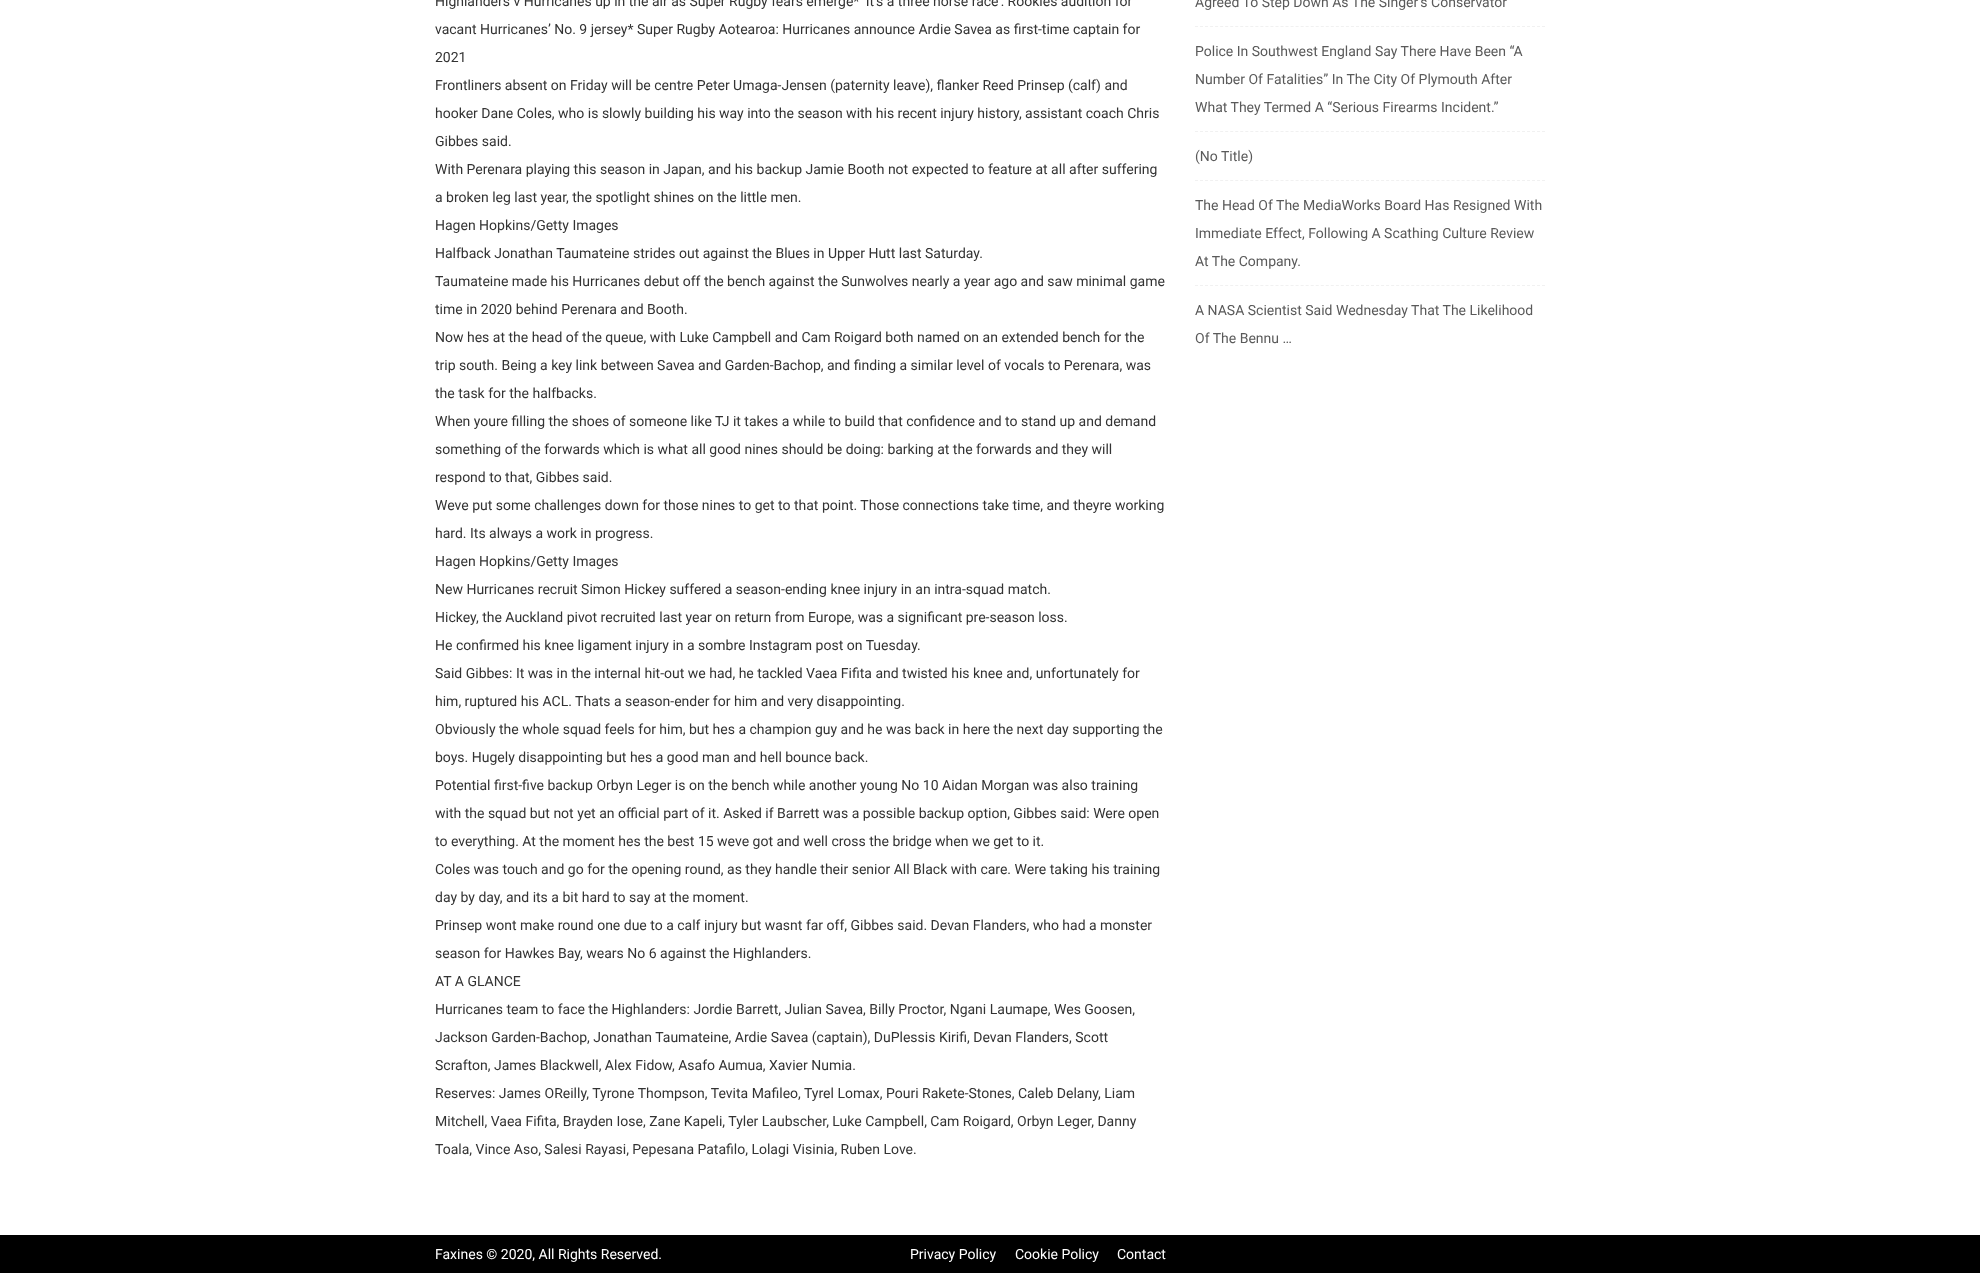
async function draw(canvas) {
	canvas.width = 1980;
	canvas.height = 1273;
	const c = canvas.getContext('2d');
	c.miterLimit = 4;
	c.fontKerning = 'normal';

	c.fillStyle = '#fff';
	c.fillRect(0, 0, 1980, 1273);
	c.font = '14px Roboto';
	c.fillStyle = '#333';
	for (const [text, x, y] of [
		['Highlanders v Hurricanes up in the air as Super Rugby fears emerge* ‘It’s a three horse race’: Rookies audition for', 435, 6],
		['vacant Hurricanes’ No. 9 jersey* Super Rugby Aotearoa: Hurricanes announce Ardie Savea as first-time captain for', 435, 34],
		['2021', 435, 62],
		['Frontliners absent on Friday will be centre Peter Umaga-Jensen (paternity leave), flanker Reed Prinsep (calf) and', 435, 90],
		['hooker Dane Coles, who is slowly building his way into the season with his recent injury history, assistant coach Chris', 435, 118],
		['Gibbes said.', 435, 146],
		['With Perenara playing this season in Japan, and his backup Jamie Booth not expected to feature at all after suffering', 435, 174],
		['a broken leg last year, the spotlight shines on the little men.', 435, 202],
		['Hagen Hopkins/Getty Images', 435, 230],
		['Halfback Jonathan Taumateine strides out against the Blues in Upper Hutt last Saturday.', 435, 258],
		['Taumateine made his Hurricanes debut off the bench against the Sunwolves nearly a year ago and saw minimal game', 435, 286],
		['time in 2020 behind Perenara and Booth.', 435, 314],
		['Now hes at the head of the queue, with Luke Campbell and Cam Roigard both named on an extended bench for the', 435, 342],
		['trip south. Being a key link between Savea and Garden-Bachop, and finding a similar level of vocals to Perenara, was', 435, 370],
		['the task for the halfbacks.', 435, 398],
		['When youre filling the shoes of someone like TJ it takes a while to build that confidence and to stand up and demand', 435, 426],
		['something of the forwards which is what all good nines should be doing: barking at the forwards and they will', 435, 454],
		['respond to that, Gibbes said.', 435, 482],
		['Weve put some challenges down for those nines to get to that point. Those connections take time, and theyre working', 435, 510],
		['hard. Its always a work in progress.', 435, 538],
		['Hagen Hopkins/Getty Images', 435, 566],
		['New Hurricanes recruit Simon Hickey suffered a season-ending knee injury in an intra-squad match.', 435, 594],
		['Hickey, the Auckland pivot recruited last year on return from Europe, was a significant pre-season loss.', 435, 622],
		['He confirmed his knee ligament injury in a sombre Instagram post on Tuesday.', 435, 650],
		['Said Gibbes: It was in the internal hit-out we had, he tackled Vaea Fifita and twisted his knee and, unfortunately for', 435, 678],
		['him, ruptured his ACL. Thats a season-ender for him and very disappointing.', 435, 706],
		['Obviously the whole squad feels for him, but hes a champion guy and he was back in here the next day supporting the', 435, 734],
		['boys. Hugely disappointing but hes a good man and hell bounce back.', 435, 762],
		['Potential first-five backup Orbyn Leger is on the bench while another young No 10 Aidan Morgan was also training', 435, 790],
		['with the squad but not yet an official part of it. Asked if Barrett was a possible backup option, Gibbes said: Were open', 435, 818],
		['to everything. At the moment hes the best 15 weve got and well cross the bridge when we get to it.', 435, 846],
		['Coles was touch and go for the opening round, as they handle their senior All Black with care. Were taking his training', 435, 874],
		['day by day, and its a bit hard to say at the moment.', 435, 902],
		['Prinsep wont make round one due to a calf injury but wasnt far off, Gibbes said. Devan Flanders, who had a monster', 435, 930],
		['season for Hawkes Bay, wears No 6 against the Highlanders.', 435, 958],
		['AT A GLANCE', 435, 986],
		['Hurricanes team to face the Highlanders: Jordie Barrett, Julian Savea, Billy Proctor, Ngani Laumape, Wes Goosen,', 435, 1014],
		['Jackson Garden-Bachop, Jonathan Taumateine, Ardie Savea (captain), DuPlessis Kirifi, Devan Flanders, Scott', 435, 1042],
		['Scrafton, James Blackwell, Alex Fidow, Asafo Aumua, Xavier Numia.', 435, 1070],
		['Reserves: James OReilly, Tyrone Thompson, Tevita Mafileo, Tyrel Lomax, Pouri Rakete-Stones, Caleb Delany, Liam', 435, 1098],
		['Mitchell, Vaea Fifita, Brayden Iose, Zane Kapeli, Tyler Laubscher, Luke Campbell, Cam Roigard, Orbyn Leger, Danny', 435, 1126],
		['Toala, Vince Aso, Salesi Rayasi, Pepesana Patafilo, Lolagi Visinia, Ruben Love.', 435, 1154],
	]) {
		c.fillText(text, x, y);
	}
	c.beginPath();
	c.moveTo(1195, 26.5);
	c.lineTo(1545, 26.5);
	c.strokeStyle = '#f1f1f1';
	c.setLineDash([3, 2.03]);
	c.stroke();
	c.fillStyle = '#5a5a5a';
	c.fillText('Agreed To Step Down As The Singer’s Conservator', 1195, 7);
	c.beginPath();
	c.moveTo(1195, 131.5);
	c.lineTo(1545, 131.5);
	c.stroke();
	for (const [text, x, y] of [
		['Police In Southwest England Say There Have Been “A', 1195, 56],
		['Number Of Fatalities” In The City Of Plymouth After', 1195, 84],
		['What They Termed A “Serious Firearms Incident.”', 1195, 112],
	]) {
		c.fillText(text, x, y);
	}
	c.beginPath();
	c.moveTo(1195, 180.5);
	c.lineTo(1545, 180.5);
	c.stroke();
	c.fillText('(No Title)', 1195, 161);
	c.beginPath();
	c.moveTo(1195, 285.5);
	c.lineTo(1545, 285.5);
	c.stroke();
	for (const [text, x, y] of [
		['The Head Of The MediaWorks Board Has Resigned With', 1195, 210],
		['Immediate Effect, Following A Scathing Culture Review', 1195, 238],
		['At The Company.', 1195, 266],
		['A NASA Scientist Said Wednesday That The Likelihood', 1195, 315],
		['Of The Bennu …', 1195, 343],
	]) {
		c.fillText(text, x, y);
	}
	c.fillStyle = '#000';
	c.fillRect(0, 1235, 1980, 38);
	c.fillStyle = '#fff';
	for (const [text, x, y] of [
		['Faxines © 2020, All Rights Reserved.', 435, 1259],
		['Privacy Policy', 910, 1259],
		['Cookie Policy', 1015, 1259],
		['Contact', 1117, 1259],
	]) {
		c.fillText(text, x, y);
	}
}

draw(document.querySelector('canvas'));
